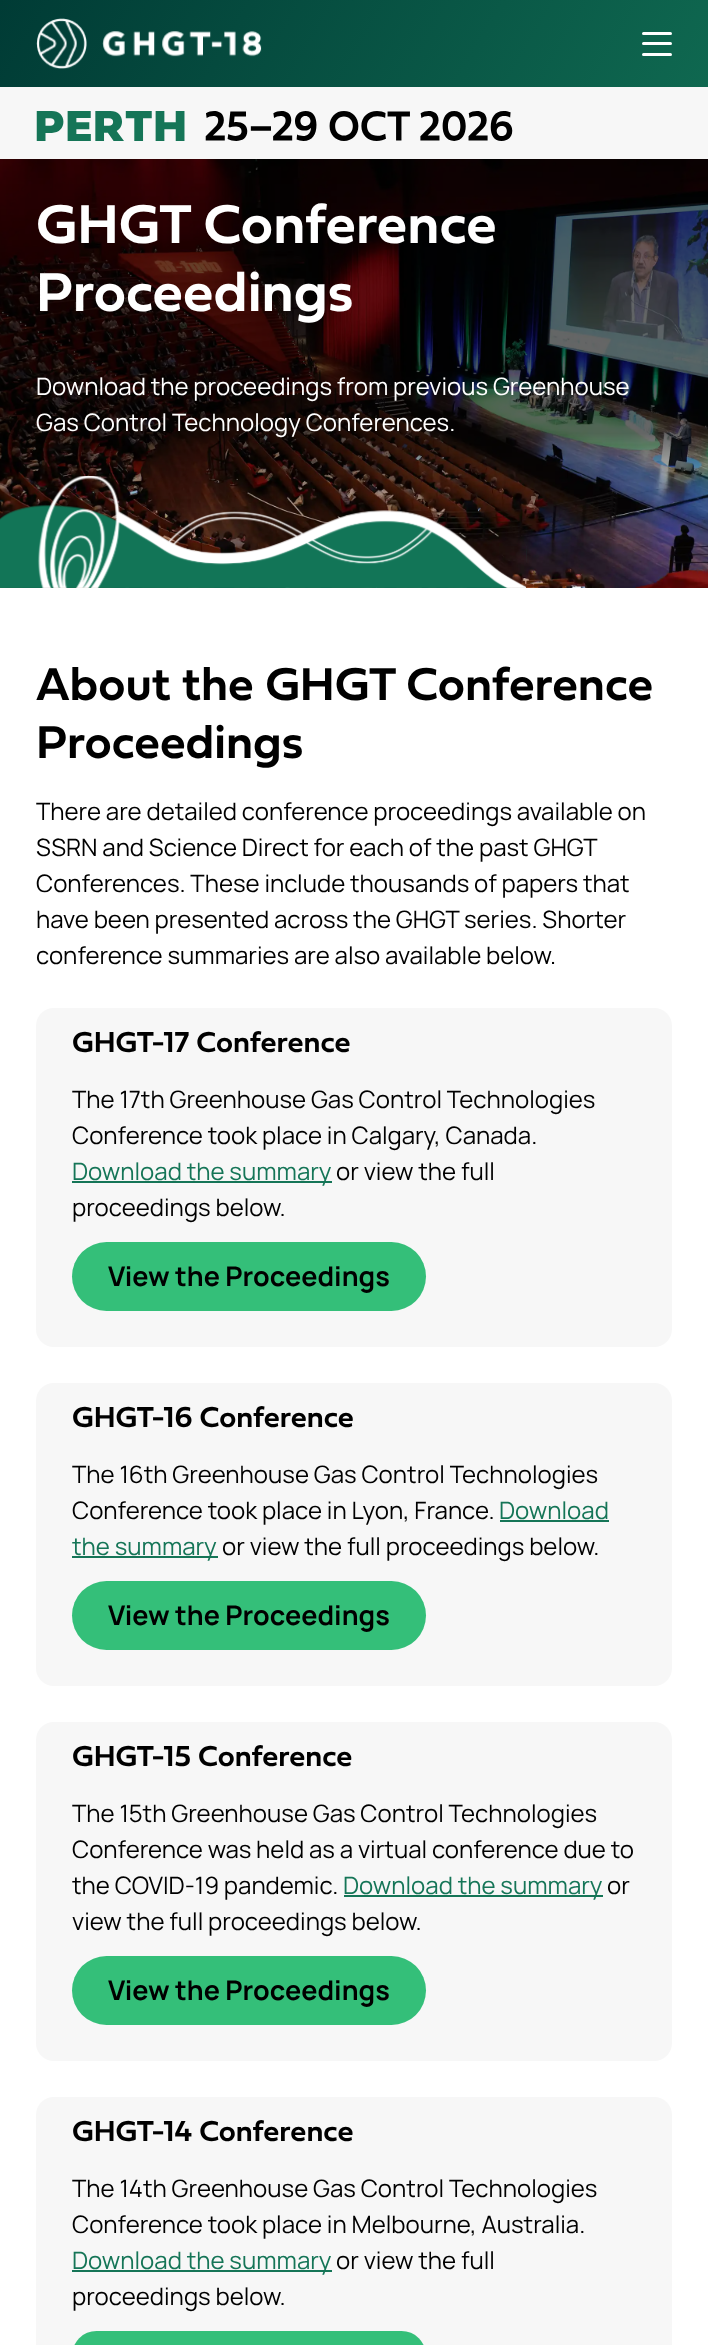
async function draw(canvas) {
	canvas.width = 708;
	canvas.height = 2345;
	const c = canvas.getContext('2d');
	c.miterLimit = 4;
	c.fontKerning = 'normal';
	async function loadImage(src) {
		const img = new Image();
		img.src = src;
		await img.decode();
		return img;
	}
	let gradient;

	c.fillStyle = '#fff';
	c.fillRect(0, 0, 708, 2345);
	gradient = c.createLinearGradient(70, -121, 638, 208);
	gradient.addColorStop(0, '#003b35');
	gradient.addColorStop(1, '#0f6850');
	c.fillStyle = gradient;
	c.fillRect(0, 0, 708, 87);
	c.drawImage(await loadImage('img1.png'), 36, 18, 226, 51);
	c.fillStyle = '#fff';
	c.beginPath();
	c.roundRect(642, 42, 30, 3, 1.5);
	c.fill();
	c.beginPath();
	c.roundRect(642, 32, 30, 3, 1.5);
	c.fill();
	c.beginPath();
	c.roundRect(642, 53, 30, 3, 1.5);
	c.fill();
	c.fillStyle = '#f7f7f7';
	c.fillRect(0, 87, 708, 72);
	c.drawImage(await loadImage('img2.png'), 36, 111, 477, 30);
	c.drawImage(await loadImage('img3.png'), 0, 159, 708, 429);
	c.font = '600 57px "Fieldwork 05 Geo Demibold"';
	c.fillStyle = '#fff';
	c.fillText('GHGT Conference', 36, 243);
	c.fillText('Proceedings', 36, 311);
	c.font = '24px Manrope';
	c.fillText('Download the proceedings from previous Greenhouse', 36, 395);
	c.fillText('Gas Control Technology Conferences.', 36, 431);
	c.drawImage(await loadImage('img4.png'), 0, 476, 527, 112);
	c.font = '600 48px "Fieldwork 05 Geo Demibold"';
	c.fillStyle = '#000';
	c.fillText('About the GHGT Conference', 36, 700);
	c.fillText('Proceedings', 36, 758);
	c.font = '24px Manrope';
	for (const [text, x, y] of [
		['There are detailed conference proceedings available on', 36, 820],
		['SSRN and Science Direct for each of the past GHGT', 36, 856],
		['Conferences. These include thousands of papers that', 36, 892],
		['have been presented across the GHGT series. Shorter', 36, 928],
		['conference summaries are also available below.', 36, 964],
	]) {
		c.fillText(text, x, y);
	}
	c.fillStyle = '#f7f7f7';
	c.beginPath();
	c.roundRect(36, 1008, 636, 339, 18);
	c.fill();
	c.font = '600 30px "Fieldwork 05 Geo Demibold"';
	c.fillStyle = '#000';
	c.fillText('GHGT-17 Conference', 72, 1052);
	c.font = '24px Manrope';
	c.fillText('The 17th Greenhouse Gas Control Technologies', 72, 1108);
	c.fillText('Conference took place in Calgary, Canada.', 72, 1144);
	c.fillStyle = '#157557';
	c.fillRect(72, 1181, 260, 2);
	c.fillText('Download the summary', 72, 1180);
	c.fillStyle = '#000';
	c.fillText('or view the full', 336, 1180);
	c.fillText('proceedings below.', 72, 1216);
	c.fillStyle = '#34bf79';
	c.beginPath();
	c.roundRect(72, 1242, 354, 69, 34.5);
	c.fill();
	c.font = 'bold 27px Manrope';
	c.fillStyle = '#000';
	c.fillText('View the Proceedings', 108, 1286);
	c.fillStyle = '#f7f7f7';
	c.beginPath();
	c.roundRect(36, 1383, 636, 303, 18);
	c.fill();
	c.font = '600 30px "Fieldwork 05 Geo Demibold"';
	c.fillStyle = '#000';
	c.fillText('GHGT-16 Conference', 72, 1427);
	c.font = '24px Manrope';
	c.fillText('The 16th Greenhouse Gas Control Technologies', 72, 1483);
	c.fillText('Conference took place in Lyon, France.', 72, 1519);
	c.fillStyle = '#157557';
	c.fillText('Download', 499, 1519);
	c.fillRect(500, 1520, 109, 2);
	c.fillRect(72, 1556, 146, 2);
	c.fillText('the summary', 72, 1555);
	c.fillStyle = '#000';
	c.fillText('or view the full proceedings below.', 222, 1555);
	c.fillStyle = '#34bf79';
	c.beginPath();
	c.roundRect(72, 1581, 354, 69, 34.5);
	c.fill();
	c.font = 'bold 27px Manrope';
	c.fillStyle = '#000';
	c.fillText('View the Proceedings', 108, 1625);
	c.fillStyle = '#f7f7f7';
	c.beginPath();
	c.roundRect(36, 1722, 636, 339, 18);
	c.fill();
	c.font = '600 30px "Fieldwork 05 Geo Demibold"';
	c.fillStyle = '#000';
	c.fillText('GHGT-15 Conference', 72, 1766);
	c.font = '24px Manrope';
	for (const [text, x, y] of [
		['The 15th Greenhouse Gas Control Technologies', 72, 1822],
		['Conference was held as a virtual conference due to', 72, 1858],
		['the COVID-19 pandemic.', 72, 1894],
	]) {
		c.fillText(text, x, y);
	}
	c.fillStyle = '#157557';
	c.fillRect(344, 1895, 259, 2);
	c.fillText('Download the summary', 343, 1894);
	c.fillStyle = '#000';
	c.fillText('or', 607, 1894);
	c.fillText('view the full proceedings below.', 72, 1930);
	c.fillStyle = '#34bf79';
	c.beginPath();
	c.roundRect(72, 1956, 354, 69, 34.5);
	c.fill();
	c.font = 'bold 27px Manrope';
	c.fillStyle = '#000';
	c.fillText('View the Proceedings', 108, 2000);
	c.fillStyle = '#f7f7f7';
	c.beginPath();
	c.roundRect(36, 2097, 636, 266, 18);
	c.fill();
	c.font = '600 30px "Fieldwork 05 Geo Demibold"';
	c.fillStyle = '#000';
	c.fillText('GHGT-14 Conference', 72, 2141);
	c.font = '24px Manrope';
	c.fillText('The 14th Greenhouse Gas Control Technologies', 72, 2197);
	c.fillText('Conference took place in Melbourne, Australia.', 72, 2233);
	c.fillStyle = '#157557';
	c.fillRect(72, 2270, 260, 2);
	c.fillText('Download the summary', 72, 2269);
	c.fillStyle = '#000';
	c.fillText('or view the full', 336, 2269);
	c.fillText('proceedings below.', 72, 2305);
	c.fillStyle = '#34bf79';
	c.beginPath();
	c.roundRect(72, 2331, 354, 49, 34.5);
	c.fill();
}

draw(document.querySelector('canvas'));
